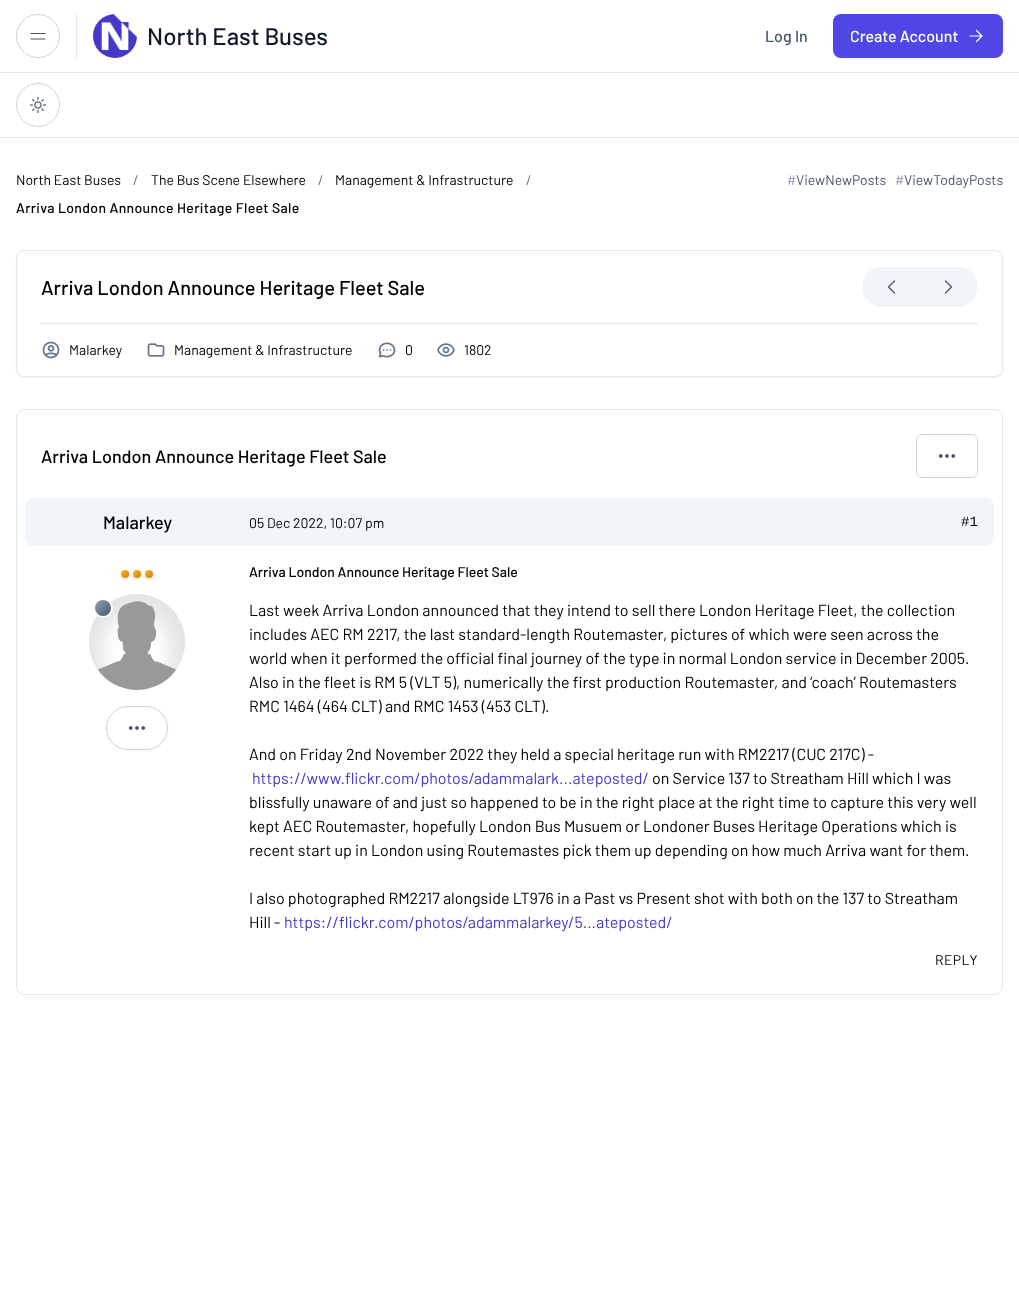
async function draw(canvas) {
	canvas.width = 1019;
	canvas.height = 1289;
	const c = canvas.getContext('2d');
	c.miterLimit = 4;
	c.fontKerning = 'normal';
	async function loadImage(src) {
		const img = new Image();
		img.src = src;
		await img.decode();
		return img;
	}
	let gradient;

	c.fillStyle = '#fff';
	c.fillRect(0, 0, 1019, 1289);
	c.fillStyle = '#e7e8ea';
	c.fillRect(0, 72, 1019, 1);
	c.beginPath();
	c.arc(38, 36, 21.5, 0, 2 * Math.PI);
	c.strokeStyle = '#cbd5e1';
	c.stroke();
	c.beginPath();
	c.moveTo(31, 33.5);
	c.lineTo(45, 33.5);
	c.moveTo(31, 39);
	c.lineTo(45, 39);
	c.strokeStyle = '#475569';
	c.lineWidth = 1.2;
	c.lineCap = 'round';
	c.lineJoin = 'round';
	c.stroke();
	c.fillStyle = '#e2e8f0';
	c.beginPath();
	c.roundRect(76, 14, 1, 44, 0.5);
	c.fill();
	c.drawImage(await loadImage('img1.png'), 93, 14, 44, 44);
	c.font = '500 24px Barlow';
	c.fillStyle = '#0f172a';
	c.fillText('North East Buses', 147, 45);
	c.font = '500 16px Barlow';
	c.fillStyle = '#475569';
	c.fillText('Log In', 765, 42);
	c.fillStyle = '#0f172a0d';
	c.filter = 'blur(1px)';
	c.beginPath();
	c.roundRect(833, 15, 170, 44, 8);
	c.fill();
	c.filter = 'none';
	c.fillStyle = '#4f46e5';
	c.beginPath();
	c.roundRect(833, 14, 170, 44, 8);
	c.fill();
	c.fillStyle = '#fff';
	c.fillText('Create Account', 850, 42);
	c.beginPath();
	c.moveTo(970, 36);
	c.lineTo(982, 36);
	c.moveTo(982, 36);
	c.lineTo(976.5, 30.5);
	c.moveTo(982, 36);
	c.lineTo(976.5, 41.5);
	c.strokeStyle = '#fff';
	c.stroke();
	c.fillStyle = '#e7e8ea';
	c.fillRect(0, 137, 1019, 1);
	c.beginPath();
	c.arc(38, 105, 21.5, 0, 2 * Math.PI);
	c.strokeStyle = '#cbd5e1';
	c.lineWidth = 1;
	c.stroke();
	c.drawImage(await loadImage('img2.png'), 30, 97, 16, 16);
	c.font = '14px Barlow';
	c.fillStyle = '#000';
	c.fillText('North East Buses', 16, 185);
	c.fillStyle = '#64748b';
	c.fillText('/', 133, 185);
	c.fillStyle = '#000';
	c.fillText('The Bus Scene Elsewhere', 151, 185);
	c.fillStyle = '#64748b';
	c.fillText('/', 318, 185);
	c.fillStyle = '#000';
	c.fillText('Management & Infrastructure', 335, 185);
	c.fillStyle = '#64748b';
	c.fillText('/', 526, 185);
	c.letterSpacing = '0.35px';
	c.font = '500 14px Barlow';
	c.fillStyle = '#000';
	c.fillText('Arriva London Announce Heritage Fleet Sale', 16, 213);
	c.letterSpacing = '0px';
	c.font = '14px Barlow';
	c.fillStyle = '#94a3b8';
	c.fillText('#', 787, 185);
	c.fillStyle = '#475569';
	c.fillText('ViewNewPosts', 796, 185);
	c.fillStyle = '#94a3b8';
	c.fillText('#', 895, 185);
	c.fillStyle = '#475569';
	c.fillText('ViewTodayPosts', 904, 185);
	c.fillStyle = '#0f172a0d';
	c.filter = 'blur(1px)';
	c.beginPath();
	c.roundRect(16, 251, 987, 127, 8);
	c.fill();
	c.filter = 'none';
	c.fillStyle = '#fff';
	c.beginPath();
	c.roundRect(16.5, 250.5, 986, 126, 7.5);
	c.fill();
	c.strokeStyle = '#e2e8f0';
	c.lineJoin = 'miter';
	c.stroke();
	c.font = '500 20px Barlow';
	c.fillStyle = '#000';
	c.fillText('Arriva London Announce Heritage Fleet Sale', 41, 295);
	c.fillStyle = '#f1f5f9';
	c.beginPath();
	c.roundRect(862, 267, 116, 40, 20);
	c.fill();
	c.beginPath();
	c.moveTo(894.5, 293);
	c.lineTo(888.5, 287);
	c.lineTo(894.5, 281);
	c.strokeStyle = '#475569';
	c.lineWidth = 1.2;
	c.lineJoin = 'round';
	c.stroke();
	c.beginPath();
	c.moveTo(945.5, 281);
	c.lineTo(951.5, 287);
	c.lineTo(945.5, 293);
	c.stroke();
	c.fillStyle = '#e2e8f0';
	c.fillRect(41, 323, 937, 1);
	c.drawImage(await loadImage('img3.png'), 42, 341, 18, 18);
	c.font = '14px Barlow';
	c.fillStyle = '#000';
	c.fillText('Malarkey', 69, 355);
	c.drawImage(await loadImage('img4.png'), 147, 343, 18, 14);
	c.fillText('Management & Infrastructure', 174, 355);
	c.drawImage(await loadImage('img5.png'), 378, 342, 18, 16);
	c.fillText('0', 405, 355);
	c.drawImage(await loadImage('img6.png'), 437, 343, 18, 14);
	c.fillText('1802', 464, 355);
	c.beginPath();
	c.roundRect(16.5, 409.5, 986, 585, 7.5);
	c.strokeStyle = '#e2e8f0';
	c.lineWidth = 1;
	c.lineJoin = 'miter';
	c.stroke();
	c.font = '500 18px Barlow';
	c.fillText('Arriva London Announce Heritage Fleet Sale', 41, 463);
	c.beginPath();
	c.roundRect(916.5, 434.5, 61, 43, 5.5);
	c.strokeStyle = '#cbd5e1';
	c.stroke();
	c.drawImage(await loadImage('img7.png'), 938, 454, 18, 4);
	c.fillStyle = '#f1f5f9';
	c.beginPath();
	c.roundRect(25, 498, 969, 48, 8);
	c.fill();
	c.fillStyle = '#000';
	c.fillText('Malarkey', 103, 529);
	c.font = '14px Barlow';
	c.fillText('05 Dec 2022, 10:07 pm', 249, 528);
	c.font = '14px Liberation Mono';
	c.fillText('#1', 961, 526);
	c.fillStyle = '#0000001a';
	c.filter = 'blur(1px)';
	c.beginPath();
	c.roundRect(122, 572, 6, 6, 3);
	c.fill();
	c.filter = 'none';
	c.save();
	c.beginPath();
	c.moveTo(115, 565);
	c.lineTo(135, 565);
	c.lineTo(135, 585);
	c.lineTo(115, 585);
	c.closePath();
	c.moveTo(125, 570);
	c.bezierCurveTo(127, 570, 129, 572, 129, 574);
	c.bezierCurveTo(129, 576, 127, 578, 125, 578);
	c.bezierCurveTo(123, 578, 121, 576, 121, 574);
	c.bezierCurveTo(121, 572, 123, 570, 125, 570);
	c.closePath();
	c.clip('evenodd');
	c.filter = 'blur(1.5px)';
	c.beginPath();
	c.roundRect(121, 571, 8, 8, 4);
	c.fill();
	c.filter = 'none';
	c.restore();
	gradient = c.createLinearGradient(121, 570, 129, 578);
	gradient.addColorStop(0, '#fbbf24');
	gradient.addColorStop(1, '#d97706');
	c.fillStyle = gradient;
	c.beginPath();
	c.arc(125, 574, 4, 0, 2 * Math.PI);
	c.fill();
	c.fillStyle = '#0000001a';
	c.filter = 'blur(1px)';
	c.beginPath();
	c.roundRect(134, 572, 6, 6, 3);
	c.fill();
	c.filter = 'none';
	c.save();
	c.beginPath();
	c.moveTo(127, 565);
	c.lineTo(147, 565);
	c.lineTo(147, 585);
	c.lineTo(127, 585);
	c.closePath();
	c.moveTo(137, 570);
	c.bezierCurveTo(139, 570, 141, 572, 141, 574);
	c.bezierCurveTo(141, 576, 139, 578, 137, 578);
	c.bezierCurveTo(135, 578, 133, 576, 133, 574);
	c.bezierCurveTo(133, 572, 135, 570, 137, 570);
	c.closePath();
	c.clip('evenodd');
	c.filter = 'blur(1.5px)';
	c.beginPath();
	c.roundRect(133, 571, 8, 8, 4);
	c.fill();
	c.filter = 'none';
	c.restore();
	gradient = c.createLinearGradient(133, 570, 141, 578);
	gradient.addColorStop(0, '#fbbf24');
	gradient.addColorStop(1, '#d97706');
	c.fillStyle = gradient;
	c.beginPath();
	c.arc(137, 574, 4, 0, 2 * Math.PI);
	c.fill();
	c.fillStyle = '#0000001a';
	c.filter = 'blur(1px)';
	c.beginPath();
	c.roundRect(146, 572, 6, 6, 3);
	c.fill();
	c.filter = 'none';
	c.save();
	c.beginPath();
	c.moveTo(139, 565);
	c.lineTo(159, 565);
	c.lineTo(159, 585);
	c.lineTo(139, 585);
	c.closePath();
	c.moveTo(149, 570);
	c.bezierCurveTo(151, 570, 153, 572, 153, 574);
	c.bezierCurveTo(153, 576, 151, 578, 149, 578);
	c.bezierCurveTo(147, 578, 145, 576, 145, 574);
	c.bezierCurveTo(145, 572, 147, 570, 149, 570);
	c.closePath();
	c.clip('evenodd');
	c.filter = 'blur(1.5px)';
	c.beginPath();
	c.roundRect(145, 571, 8, 8, 4);
	c.fill();
	c.filter = 'none';
	c.restore();
	gradient = c.createLinearGradient(145, 570, 153, 578);
	gradient.addColorStop(0, '#fbbf24');
	gradient.addColorStop(1, '#d97706');
	c.fillStyle = gradient;
	c.beginPath();
	c.arc(149, 574, 4, 0, 2 * Math.PI);
	c.fill();
	c.fillStyle = '#f1f5f9';
	c.beginPath();
	c.arc(137, 642, 48, 0, 2 * Math.PI);
	c.fill();
	c.drawImage(await loadImage('img8.png'), 89, 594, 96, 96);
	c.fillStyle = '#0000001a';
	c.filter = 'blur(1px)';
	c.beginPath();
	c.roundRect(96, 602, 14, 14, 7);
	c.fill();
	c.filter = 'none';
	c.filter = 'blur(1.5px)';
	c.beginPath();
	c.roundRect(95, 601, 16, 16, 8);
	c.fill();
	c.filter = 'none';
	c.beginPath();
	c.arc(103, 608, 9, 0, 2 * Math.PI);
	c.strokeStyle = '#fff';
	c.lineWidth = 2;
	c.stroke();
	gradient = c.createLinearGradient(95, 600, 111, 616);
	gradient.addColorStop(0, '#94a3b8');
	gradient.addColorStop(1, '#475569');
	c.fillStyle = gradient;
	c.beginPath();
	c.arc(103, 608, 8, 0, 2 * Math.PI);
	c.fill();
	c.fillStyle = '#0f172a0d';
	c.filter = 'blur(1px)';
	c.beginPath();
	c.roundRect(106, 707, 62, 44, 22);
	c.fill();
	c.filter = 'none';
	c.fillStyle = '#fff';
	c.beginPath();
	c.roundRect(106.5, 706.5, 61, 43, 21.5);
	c.fill();
	c.strokeStyle = '#cbd5e1';
	c.lineWidth = 1;
	c.stroke();
	c.drawImage(await loadImage('img7.png'), 128, 726, 18, 4);
	c.font = '500 14px Barlow';
	c.fillStyle = '#000';
	c.fillText('Arriva London Announce Heritage Fleet Sale', 249, 577);
	c.font = '16px Barlow';
	for (const [text, x, y] of [
		['Last week Arriva London announced that they intend to sell there London Heritage Fleet, the collection', 249, 616],
		['includes AEC RM 2217, the last standard-length Routemaster, pictures of which were seen across the', 249, 640],
		['world when it performed the official final journey of the type in normal London service in December 2005.', 249, 664],
		['Also in the fleet is RM 5 (VLT 5), numerically the first production Routemaster, and ‘coach’ Routemasters', 249, 688],
		['RMC 1464 (464 CLT) and RMC 1453 (453 CLT).', 249, 712],
		['And on Friday 2nd November 2022 they held a special heritage run with RM2217 (CUC 217C) -', 249, 760],
	]) {
		c.fillText(text, x, y);
	}
	c.fillStyle = '#4338ca';
	c.fillText('https://www.flickr.com/photos/adammalark...ateposted/', 252, 784);
	c.fillStyle = '#000';
	for (const [text, x, y] of [
		['on Service 137 to Streatham Hill which I was', 652, 784],
		['blissfully unaware of and just so happened to be in the right place at the right time to capture this very well', 249, 808],
		['kept AEC Routemaster, hopefully London Bus Musuem or Londoner Buses Heritage Operations which is', 249, 832],
		['recent start up in London using Routemastes pick them up depending on how much Arriva want for them.', 249, 856],
		['I also photographed RM2217 alongside LT976 in a Past vs Present shot with both on the 137 to Streatham', 249, 904],
		['Hill -', 249, 928],
	]) {
		c.fillText(text, x, y);
	}
	c.fillStyle = '#4338ca';
	c.fillText('https://flickr.com/photos/adammalarkey/5...ateposted/', 284, 928);
	c.letterSpacing = '0.35px';
	c.font = '14px Barlow';
	c.fillStyle = '#000';
	c.fillText('REPLY', 935, 965);
}

draw(document.querySelector('canvas'));
